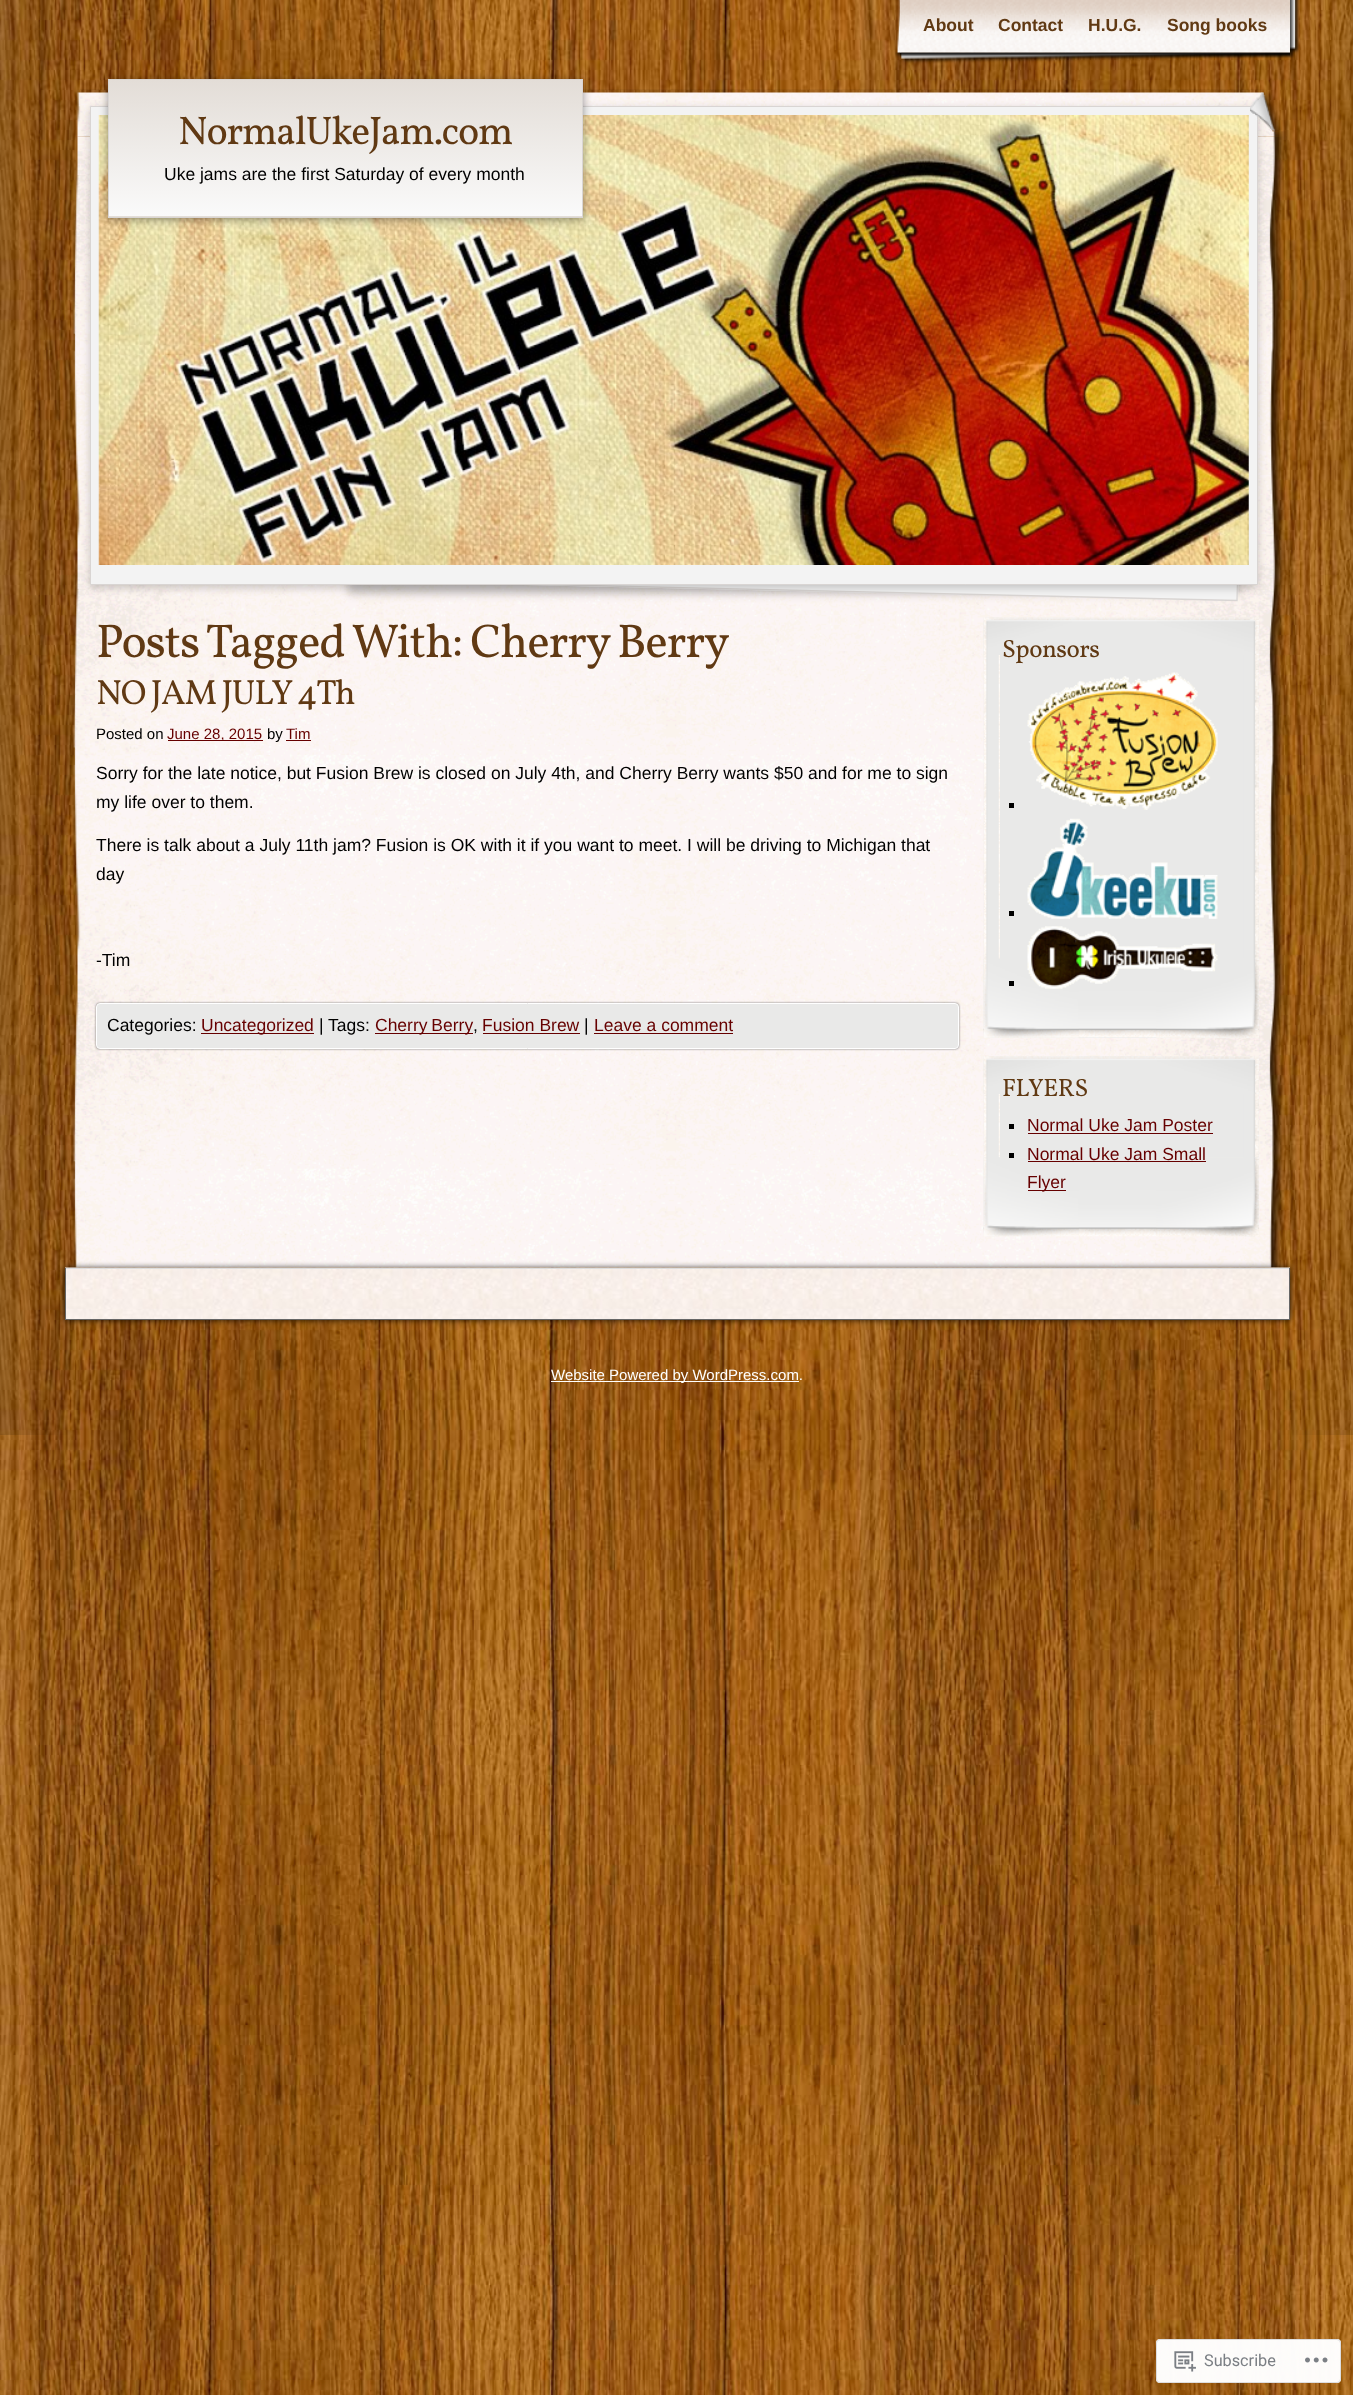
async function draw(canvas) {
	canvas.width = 1353;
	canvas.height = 2395;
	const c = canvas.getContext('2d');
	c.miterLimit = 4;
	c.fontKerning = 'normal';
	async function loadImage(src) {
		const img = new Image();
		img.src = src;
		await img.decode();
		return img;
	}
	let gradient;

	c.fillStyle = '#fff';
	c.fillRect(0, 0, 1353, 2395);
	c.drawImage(await loadImage('img1.png'), 0, 0, 1353, 2395);
	c.drawImage(await loadImage('img2.png'), 0, 0, 1353, 1320);
	c.drawImage(await loadImage('img3.png'), 895, 0, 395, 64);
	c.drawImage(await loadImage('img4.png'), 900, 0, 390, 58);
	c.font = 'bold 17.5px Liberation Sans';
	c.fillStyle = '#603913';
	for (const [text, x, y] of [
		['About', 923, 31],
		['Contact', 998, 31],
		['H.U.G.', 1088, 31],
		['Song books', 1167, 31],
	]) {
		c.fillText(text, x, y);
	}
	c.drawImage(await loadImage('img5.png'), 1290, 0, 10, 58);
	c.drawImage(await loadImage('img9.png'), 71, 136, 1216, 1132);
	c.drawImage(await loadImage('img6.png'), 75, 89, 1211, 48);
	c.fillStyle = '#00000033';
	c.filter = 'blur(4px)';
	c.beginPath();
	c.rect(348, 449, 892, 145);
	c.fill();
	c.filter = 'none';
	c.fillStyle = '#f3f3f3';
	c.beginPath();
	c.moveTo(349, 436);
	c.lineTo(1241, 456);
	c.lineTo(1238, 601);
	c.lineTo(345, 581);
	c.closePath();
	c.fill();
	c.beginPath();
	c.moveTo(349, 436.5);
	c.lineTo(1240.5, 456.5);
	c.lineTo(1237, 600.5);
	c.lineTo(346, 580);
	c.closePath();
	c.strokeStyle = '#d9d5d3';
	c.lineWidth = 1.3;
	c.stroke();
	c.fillStyle = '#00000033';
	c.filter = 'blur(4px)';
	c.beginPath();
	c.rect(90, 109, 1168, 479);
	c.fill();
	c.filter = 'none';
	c.fillStyle = '#f3f3f3';
	c.beginPath();
	c.rect(90.5, 106.5, 1167, 478);
	c.fill();
	c.lineWidth = 1;
	c.stroke();
	c.drawImage(await loadImage('img7.png'), 1250, 92, 32, 40);
	c.drawImage(await loadImage('img8.png'), 98, 115, 1151, 450);
	c.fillStyle = '#00000066';
	c.filter = 'blur(4px)';
	c.beginPath();
	c.rect(108, 81, 475, 139);
	c.fill();
	c.filter = 'none';
	gradient = c.createLinearGradient(345, 80, 345, 216);
	gradient.addColorStop(0, '#e3ddd7');
	gradient.addColorStop(1, '#fafafa');
	c.fillStyle = gradient;
	c.fillRect(109, 80, 473, 136);
	gradient = c.createLinearGradient(345, 216, 345, 353);
	gradient.addColorStop(0, '#e3ddd7');
	gradient.addColorStop(1, '#fafafa');
	c.fillStyle = gradient;
	c.fillRect(108, 216, 475, 1);
	c.strokeRect(108.5, 79.5, 474, 138);
	c.letterSpacing = '-1.25px';
	c.font = '40px Vollkorn';
	c.fillStyle = '#603913';
	c.fillText('NormalUkeJam.com', 178, 144);
	c.letterSpacing = '0px';
	c.font = '17.5px Liberation Sans';
	c.fillStyle = '#000';
	c.fillText('Uke jams are the first Saturday of every month', 164, 180);
	c.letterSpacing = '-1.25px';
	c.font = '47.5px Vollkorn';
	c.fillStyle = '#603913';
	c.fillText('Posts Tagged With: Cherry Berry', 96, 657);
	c.font = '35px Vollkorn';
	c.fillText('NO JAM JULY 4Th', 96, 704);
	c.letterSpacing = '0px';
	c.font = '15px Liberation Sans';
	c.fillStyle = '#000';
	c.fillText('Posted on', 96, 739);
	c.fillStyle = '#600';
	c.fillRect(168, 740, 95, 1);
	c.fillText('June 28, 2015', 167, 739);
	c.fillStyle = '#000';
	c.fillText('by', 267, 739);
	c.fillStyle = '#600';
	c.fillText('Tim', 286, 739);
	c.fillRect(286, 740, 25, 1);
	c.font = '17.5px Liberation Sans';
	c.fillStyle = '#000';
	for (const [text, x, y] of [
		['Sorry for the late notice, but Fusion Brew is closed on July 4th, and Cherry Berry wants $50 and for me to sign', 96, 779],
		['my life over to them.', 96, 808],
		['There is talk about a July 11th jam? Fusion is OK with it if you want to meet. I will be driving to Michigan that', 96, 851],
		['day', 96, 880],
		['-Tim', 96, 966],
	]) {
		c.fillText(text, x, y);
	}
	c.fillStyle = '#00000080';
	c.filter = 'blur(1px)';
	c.beginPath();
	c.roundRect(96, 1003, 863, 46, 4);
	c.fill();
	c.filter = 'none';
	c.fillStyle = '#e9e9e8';
	c.beginPath();
	c.roundRect(96.5, 1003.5, 862, 45, 3.5);
	c.fill();
	c.strokeStyle = '#fff';
	c.stroke();
	c.fillStyle = '#000';
	c.fillText('Categories:', 107, 1031);
	c.fillStyle = '#600';
	c.fillRect(201, 1033, 113, 1);
	c.fillText('Uncategorized', 201, 1031);
	c.fillStyle = '#000';
	c.fillText('|', 319, 1031);
	c.fillText('Tags:', 328, 1031);
	c.fillStyle = '#600';
	c.fillRect(375, 1033, 98, 1);
	c.wordSpacing = '-1px';
	c.fillText('Cherry Berry', 375, 1031);
	c.wordSpacing = '0px';
	c.fillStyle = '#000';
	c.fillText(',', 473, 1031);
	c.fillStyle = '#600';
	c.fillRect(483, 1033, 97, 1);
	c.fillText('Fusion Brew', 482, 1031);
	c.fillStyle = '#000';
	c.fillText('|', 584, 1031);
	c.fillStyle = '#600';
	c.fillText('Leave a comment', 594, 1031);
	c.fillRect(594, 1033, 139, 1);
	c.fillStyle = '#e9e9e8';
	c.fillRect(984, 618, 275, 420);
	c.drawImage(await loadImage('img10.png'), 983, 617, 276, 421);
	c.letterSpacing = '-0.5px';
	c.font = '25px Vollkorn';
	c.fillStyle = '#603913';
	c.fillText('Sponsors', 1002, 657);
	c.fillStyle = '#000';
	c.fillRect(1009, 803, 5, 5);
	c.drawImage(await loadImage('img11.png'), 1027, 672, 191, 138);
	c.fillRect(1009, 911, 5, 5);
	c.drawImage(await loadImage('img12.png'), 1027, 818, 191, 101);
	c.fillRect(1009, 981, 5, 5);
	c.drawImage(await loadImage('img13.png'), 1027, 926, 191, 63);
	c.fillStyle = '#e9e9e8';
	c.fillRect(984, 1056, 275, 180);
	c.drawImage(await loadImage('img14.png'), 983, 1056, 276, 181);
	c.fillStyle = '#603913';
	c.fillText('FLYERS', 1002, 1096);
	c.fillStyle = '#000';
	c.fillRect(1009, 1124, 5, 5);
	c.letterSpacing = '0px';
	c.font = '17.5px Liberation Sans';
	c.fillStyle = '#600';
	c.fillText('Normal Uke Jam Poster', 1027, 1131);
	c.fillRect(1028, 1133, 185, 1);
	c.fillStyle = '#000';
	c.fillRect(1009, 1153, 5, 5);
	c.fillStyle = '#600';
	c.fillText('Normal Uke Jam Small', 1027, 1160);
	c.fillRect(1028, 1161, 178, 1);
	c.fillRect(1028, 1190, 38, 1);
	c.fillText('Flyer', 1027, 1188);
	c.fillStyle = '#000000cc';
	c.filter = 'blur(3px)';
	c.beginPath();
	c.rect(65, 1268, 1225, 52);
	c.fill();
	c.filter = 'none';
	c.drawImage(await loadImage('img15.png'), 65, 1267, 1225, 52);
	for (const [x, y, w, h, color] of [
		[65, 1268, 1225, 1, '#ddd'],
		[1289, 1268, 1, 52, '#666'],
		[65, 1319, 1225, 1, '#666'],
		[65, 1268, 1, 52, '#666'],
	]) {
		c.fillStyle = color;
		c.fillRect(x, y, w, h);
	}
	c.drawImage(await loadImage('img16.png'), 0, 1320, 1353, 115);
	c.fillStyle = '#fff';
	c.fillRect(551, 1381, 248, 1);
	c.font = '15px Liberation Sans';
	c.fillText('Website Powered by WordPress.com.', 551, 1380);
	c.fillStyle = '#fffffffa';
	c.beginPath();
	c.roundRect(1156, 2339, 185, 44, 4);
	c.fill();
	c.beginPath();
	c.roundRect(1156.5, 2339.5, 184, 43, 3.5);
	c.strokeStyle = '#dcdcdefa';
	c.stroke();
	c.drawImage(await loadImage('img17.png'), 1174, 2351, 22, 21);
	c.font = '16.25px Roboto';
	c.fillStyle = '#7b7f84';
	c.fillText('Subscribe', 1204, 2366);
	c.drawImage(await loadImage('img18.png'), 1305, 2357, 23, 6);
}

draw(document.querySelector('canvas'));
